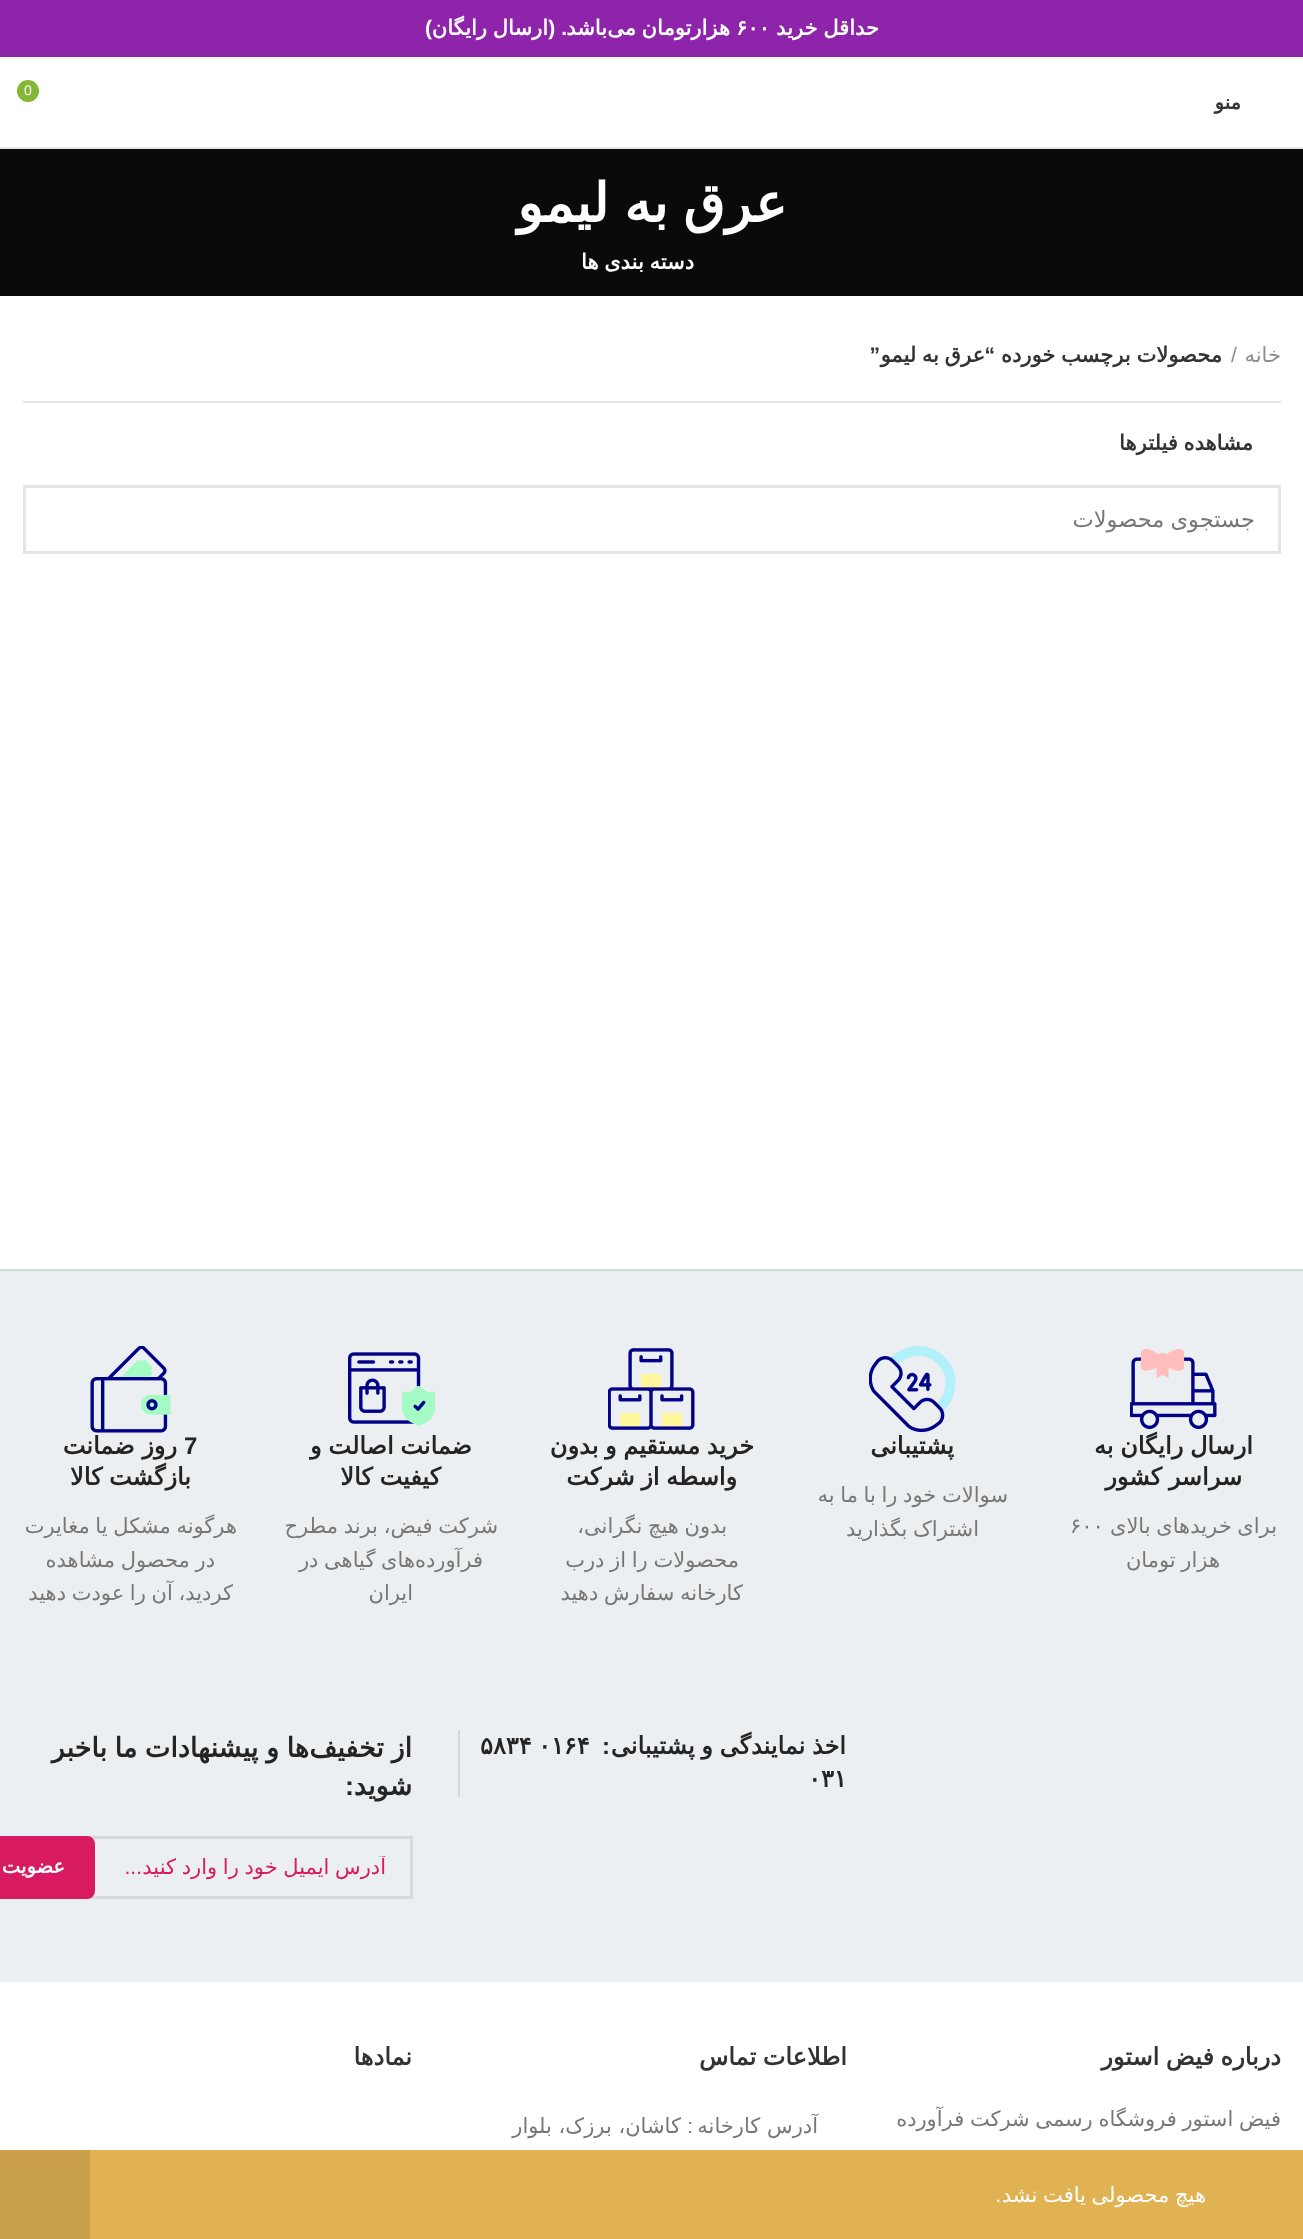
async function draw(canvas) {
	canvas.width = 1303;
	canvas.height = 2239;
	const c = canvas.getContext('2d');
	c.miterLimit = 4;
	c.fontKerning = 'normal';
	async function loadImage(src) {
		const img = new Image();
		img.src = src;
		await img.decode();
		return img;
	}

	c.fillStyle = '#fff';
	c.fillRect(0, 0, 1303, 2239);
	c.fillStyle = '#8e24aa';
	c.fillRect(0, 0, 1303, 57);
	c.wordSpacing = '-1px';
	c.direction = 'rtl';
	c.font = 'bold 21px DejaVu Sans';
	c.fillStyle = '#fff';
	c.fillText('حداقل خرید', 879, 35);
	c.wordSpacing = '0px';
	c.direction = 'ltr';
	c.fillText('۶۰۰', 736, 35);
	c.direction = 'rtl';
	for (const [text, x, y] of [
		['هزارتومان', 730, 35],
		['می', 636, 35],
		['باشد', 607, 35],
	]) {
		c.fillText(text, x, y);
	}
	c.font = 'bold 21px Liberation Sans';
	c.fillText('. (', 567, 35);
	c.font = 'bold 21px DejaVu Sans';
	c.fillText('ارسال', 548, 35);
	c.fillText('رایگان', 487, 35);
	c.font = 'bold 21px Liberation Sans';
	c.fillText(')', 432, 35);
	c.fillStyle = '#e8e8e8';
	c.fillRect(0, 147, 1303, 2);
	c.fillStyle = '#83b735';
	c.beginPath();
	c.arc(28, 91, 11, 0, 2 * Math.PI);
	c.fill();
	c.direction = 'ltr';
	c.font = '14px Liberation Sans';
	c.fillStyle = '#fff';
	c.fillText('0', 24, 95);
	c.direction = 'rtl';
	c.font = 'bold 19.5px DejaVu Sans';
	c.fillStyle = '#333';
	c.fillText('منو', 1241, 109);
	c.fillStyle = '#0a0a0a';
	c.fillRect(0, 149, 1303, 147);
	c.wordSpacing = '-2px';
	c.font = 'bold 54px DejaVu Sans';
	c.fillStyle = '#fff';
	c.fillText('عرق به لیمو', 787, 222);
	c.wordSpacing = '-1px';
	c.font = 'bold 21px DejaVu Sans';
	c.fillText('دسته بندی ها', 694, 269);
	c.fillStyle = '#e6e6e6';
	c.fillRect(23, 401, 1258, 2);
	c.wordSpacing = '0px';
	c.font = '21px DejaVu Sans';
	c.fillStyle = '#8e8e8e';
	c.fillText('خانه', 1281, 362);
	c.direction = 'ltr';
	c.font = '21px Liberation Sans';
	c.fillText('/', 1231, 362);
	c.wordSpacing = '-1px';
	c.direction = 'rtl';
	c.font = 'bold 21px DejaVu Sans';
	c.fillStyle = '#333';
	c.fillText('محصولات برچسب خورده', 1222, 362);
	c.wordSpacing = '0px';
	c.font = 'bold 21px Liberation Sans';
	c.fillText('“', 995, 362);
	c.wordSpacing = '-1px';
	c.font = 'bold 21px DejaVu Sans';
	c.fillText('عرق به لیمو', 985, 362);
	c.wordSpacing = '0px';
	c.font = 'bold 21px Liberation Sans';
	c.fillText('”', 880, 362);
	c.wordSpacing = '-1px';
	c.font = 'bold 21px DejaVu Sans';
	c.fillText('مشاهده فیلترها', 1253, 450);
	c.strokeStyle = '#e6e6e6';
	c.lineWidth = 3;
	c.strokeRect(24.5, 486.5, 1255, 66);
	c.font = '22.5px DejaVu Sans';
	c.fillStyle = '#777';
	c.fillText('جستجوی محصولات', 1255, 527);
	c.fillStyle = '#e0b252';
	c.fillRect(90, 2150, 1213, 89);
	c.font = '21px DejaVu Sans';
	c.fillStyle = '#fff';
	c.fillText('هیچ محصولی یافت نشد', 1206, 2202);
	c.wordSpacing = '0px';
	c.font = '21px Liberation Sans';
	c.fillText('.', 1001, 2202);
	for (const [x, y, w, h, color] of [
		[0, 2150, 90, 89, '#caa04a'],
		[0, 1271, 1303, 711, '#eceff1'],
		[0, 1269, 1303, 2, '#cfd8dc'],
	]) {
		c.fillStyle = color;
		c.fillRect(x, y, w, h);
	}
	c.drawImage(await loadImage('img1.png'), 1130, 1349, 87, 81);
	c.wordSpacing = '-1px';
	c.font = 'bold 24px DejaVu Sans';
	c.fillStyle = '#242424';
	c.fillText('ارسال رایگان به', 1253, 1454);
	c.fillText('سراسر کشور', 1242, 1485);
	c.font = '21px DejaVu Sans';
	c.fillStyle = '#777';
	c.fillText('برای خریدهای بالای', 1277, 1533);
	c.wordSpacing = '0px';
	c.direction = 'ltr';
	c.fillText('۶۰۰', 1070, 1533);
	c.wordSpacing = '-1px';
	c.direction = 'rtl';
	c.fillText('هزار تومان', 1220, 1567);
	c.drawImage(await loadImage('img2.png'), 869, 1346, 87, 87);
	c.wordSpacing = '0px';
	c.font = 'bold 24px DejaVu Sans';
	c.fillStyle = '#242424';
	c.fillText('پشتیبانی', 954, 1454);
	c.wordSpacing = '-1px';
	c.font = '21px DejaVu Sans';
	c.fillStyle = '#777';
	c.fillText('سوالات خود را با ما به', 1008, 1502);
	c.fillText('اشتراک بگذارید', 979, 1536);
	c.drawImage(await loadImage('img3.png'), 608, 1348, 87, 82);
	c.font = 'bold 24px DejaVu Sans';
	c.fillStyle = '#242424';
	c.fillText('خرید مستقیم و بدون', 754, 1454);
	c.fillText('واسطه از شرکت', 737, 1485);
	c.font = '21px DejaVu Sans';
	c.fillStyle = '#777';
	for (const [text, x, y] of [
		['بدون هیچ نگرانی،', 727, 1533],
		['محصولات را از درب', 739, 1567],
		['کارخانه سفارش دهید', 743, 1600],
	]) {
		c.fillText(text, x, y);
	}
	c.drawImage(await loadImage('img4.png'), 348, 1352, 87, 74);
	c.font = 'bold 24px DejaVu Sans';
	c.fillStyle = '#242424';
	c.fillText('ضمانت اصالت و', 472, 1454);
	c.fillText('کیفیت کالا', 441, 1485);
	c.font = '21px DejaVu Sans';
	c.fillStyle = '#777';
	c.fillText('شرکت فیض، برند مطرح', 498, 1533);
	c.wordSpacing = '0px';
	c.fillText('فرآورده', 483, 1567);
	c.wordSpacing = '-1px';
	c.fillText('های گیاهی در', 415, 1567);
	c.wordSpacing = '0px';
	c.fillText('ایران', 413, 1600);
	c.drawImage(await loadImage('img5.png'), 90, 1346, 81, 87);
	c.direction = 'ltr';
	c.font = 'bold 24px Liberation Sans';
	c.fillStyle = '#242424';
	c.fillText('7', 184, 1454);
	c.direction = 'rtl';
	c.font = 'bold 24px DejaVu Sans';
	c.fillText('روز ضمانت', 177, 1454);
	c.wordSpacing = '-1px';
	c.fillText('بازگشت کالا', 191, 1485);
	c.font = '21px DejaVu Sans';
	c.fillStyle = '#777';
	for (const [text, x, y] of [
		['هرگونه مشکل یا مغایرت', 237, 1533],
		['در محصول مشاهده', 215, 1567],
		['کردید، آن را عودت دهید', 233, 1600],
	]) {
		c.fillText(text, x, y);
	}
	c.fillStyle = '#cfd8dc';
	c.fillRect(458, 1730, 2, 67);
	c.font = 'bold 24px DejaVu Sans';
	c.fillStyle = '#242424';
	c.fillText('اخذ نمایندگی و پشتیبانی', 846, 1754);
	c.wordSpacing = '0px';
	c.font = 'bold 24px Liberation Sans';
	c.fillText(':', 610, 1754);
	c.direction = 'ltr';
	c.font = 'bold 24px DejaVu Sans';
	for (const [text, x, y] of [
		['۰۱۶۴', 538, 1754],
		['۵۸۳۴', 480, 1754],
		['۰۳۱', 808, 1787],
	]) {
		c.fillText(text, x, y);
	}
	c.wordSpacing = '-1px';
	c.direction = 'rtl';
	c.font = 'bold 27px DejaVu Sans';
	c.fillText('ها و پیشنهادات ما باخبر', 309, 1757);
	c.fillText('از تخفیف', 412, 1757);
	c.wordSpacing = '0px';
	c.fillText('شوید', 412, 1795);
	c.font = 'bold 27px Liberation Sans';
	c.fillText(':', 354, 1795);
	c.strokeStyle = '#d7d9db';
	c.strokeRect(45.5, 1837.5, 366, 60);
	c.save();
	c.beginPath();
	c.rect(69, 1856, 318, 24);
	c.clip();
	c.wordSpacing = '-1px';
	c.font = '21px DejaVu Sans';
	c.fillStyle = '#d81b60';
	c.fillText('آدرس ایمیل خود را وارد کنید', 386, 1874);
	c.restore();
	c.font = '21px Liberation Sans';
	c.fillStyle = '#d81b60';
	c.fillText('...', 142, 1874);
	c.beginPath();
	c.roundRect(0, 1836, 95, 63, [0, 8, 8, 0]);
	c.fill();
	c.font = 'bold 19.5px DejaVu Sans';
	c.fillStyle = '#fff';
	c.fillText('عضویت', 65, 1873);
	c.wordSpacing = '-1px';
	c.font = 'bold 24px DejaVu Sans';
	c.fillStyle = '#333';
	c.fillText('درباره فیض استور', 1281, 2065);
	c.font = '21px DejaVu Sans';
	c.fillStyle = '#777';
	c.fillText('فیض استور فروشگاه رسمی شرکت فرآورده', 1281, 2126);
	c.font = 'bold 24px DejaVu Sans';
	c.fillStyle = '#333';
	c.fillText('اطلاعات تماس', 847, 2065);
	c.wordSpacing = '0px';
	c.font = '21px DejaVu Sans';
	c.fillStyle = '#777';
	c.fillText('آدرس کارخانه', 818, 2133);
	c.font = '21px Liberation Sans';
	c.fillText(':', 693, 2133);
	c.font = '21px DejaVu Sans';
	c.fillText('کاشان، برزک، بلوار', 681, 2133);
	c.font = 'bold 24px DejaVu Sans';
	c.fillStyle = '#333';
	c.fillText('نمادها', 412, 2065);
}

draw(document.querySelector('canvas'));
